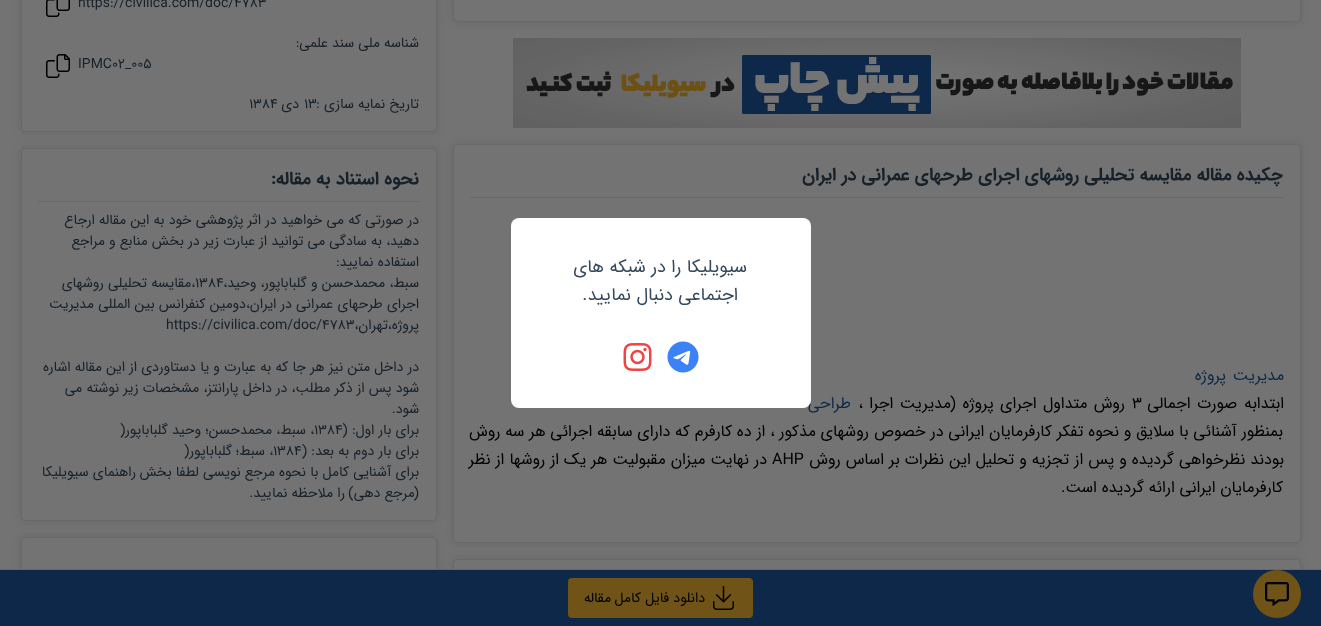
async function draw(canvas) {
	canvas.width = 1321;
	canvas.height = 626;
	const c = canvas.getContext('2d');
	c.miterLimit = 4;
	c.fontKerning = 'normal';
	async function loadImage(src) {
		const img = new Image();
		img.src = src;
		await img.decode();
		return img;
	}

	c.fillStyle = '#737373';
	c.fillRect(0, 0, 1321, 626);
	c.drawImage(await loadImage('img1.png'), 513, 38, 728, 90);
	c.fillStyle = '#0000001a';
	c.filter = 'blur(5px)';
	c.beginPath();
	c.roundRect(453, 144, 848, 399, 4);
	c.fill();
	c.filter = 'none';
	c.fillStyle = '#737373';
	c.beginPath();
	c.roundRect(453.5, 144.5, 847, 398, 3.5);
	c.fill();
	c.strokeStyle = '#67686a';
	c.stroke();
	c.fillStyle = '#67686a';
	c.fillRect(470, 197, 814, 1);
	c.direction = 'rtl';
	c.font = 'bold 18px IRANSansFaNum';
	c.fillStyle = '#17212a';
	c.fillText('چکیده مقاله مقایسه تحلیلی روشهای اجرای طرحهای عمرانی در ایران', 1283, 180);
	c.wordSpacing = '2px';
	c.font = '16px IRANSansFaNum';
	c.fillStyle = '#0d2848';
	c.fillText('مدیریت پروژه', 1284, 380);
	c.wordSpacing = '0px';
	c.fillStyle = '#000';
	c.fillText('ابتدابه', 1284, 408);
	c.wordSpacing = '2px';
	c.fillText('صورت اجمالی', 1237, 408);
	c.wordSpacing = '0px';
	c.direction = 'ltr';
	c.fillText('3', 1132, 408);
	c.wordSpacing = '1.5px';
	c.direction = 'rtl';
	c.fillText('روش متداول اجرای پروژه (مدیریت اجرا ،', 1125, 408);
	c.wordSpacing = '0px';
	c.fillStyle = '#0d2848';
	c.fillText('طراحی', 851, 408);
	c.fillStyle = '#000';
	c.fillText('بمنظور آشنائی با سلایق و نحوه تفکر کارفرمایان ایرانی در خصوص روشهای مذکور ، از ده کارفرم که دارای سابقه اجرائی هر سه روش', 1283, 436);
	c.wordSpacing = '0.2px';
	c.fillText('بودند نظرخواهی گردیده و پس از تجزیه و تحلیل این نظرات بر اساس روش', 1284, 464);
	c.wordSpacing = '0px';
	c.direction = 'ltr';
	c.fillText('AHP', 772, 464);
	c.wordSpacing = '0.2px';
	c.direction = 'rtl';
	c.fillText('در نهایت میزان مقبولیت هر یک از روشها از نظر', 767, 464);
	c.wordSpacing = '0px';
	c.fillText('کارفرمایان ایرانی ارائه گردیده است.', 1283, 492);
	c.fillStyle = '#0000001a';
	c.filter = 'blur(5px)';
	c.beginPath();
	c.roundRect(453, 559, 848, 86, 4);
	c.fill();
	c.filter = 'none';
	c.fillStyle = '#737373';
	c.beginPath();
	c.roundRect(453.5, 559.5, 847, 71, 3.5);
	c.fill();
	c.stroke();
	c.fillStyle = '#0000001a';
	c.filter = 'blur(5px)';
	c.beginPath();
	c.roundRect(453, -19, 848, 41, 4);
	c.fill();
	c.filter = 'none';
	c.fillStyle = '#737373';
	c.beginPath();
	c.roundRect(453.5, -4.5, 847, 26, 3.5);
	c.fill();
	c.stroke();
	c.fillStyle = '#0000001a';
	c.filter = 'blur(5px)';
	c.beginPath();
	c.roundRect(21, 537, 416, 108, 4);
	c.fill();
	c.filter = 'none';
	c.fillStyle = '#737373';
	c.beginPath();
	c.roundRect(21.5, 537.5, 415, 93, 3.5);
	c.fill();
	c.stroke();
	c.fillStyle = '#0d2848';
	c.fillRect(0, 570, 1321, 56);
	c.fillStyle = '#67686a';
	c.fillRect(0, 569, 1321, 1);
	c.fillStyle = '#705316';
	c.beginPath();
	c.roundRect(568, 578, 185, 40, 4);
	c.fill();
	c.drawImage(await loadImage('img2.png'), 713, 586, 21, 24);
	c.font = '14px IRANSansFaNum';
	c.fillStyle = '#000';
	c.fillText('دانلود فایل کامل', 705, 602);
	c.fillText('مقاله', 611, 602);
	c.fillStyle = '#0000001a';
	c.filter = 'blur(5px)';
	c.beginPath();
	c.roundRect(21, -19, 416, 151, 4);
	c.fill();
	c.filter = 'none';
	c.fillStyle = '#737373';
	c.beginPath();
	c.roundRect(21.5, -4.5, 415, 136, 3.5);
	c.fill();
	c.stroke();
	c.direction = 'ltr';
	c.fillStyle = '#17212a';
	c.fillText('https://civilica.com/doc/4783', 78, 7);
	c.drawImage(await loadImage('img3.png'), 46, 0, 24, 17);
	c.direction = 'rtl';
	c.fillText('شناسه ملی سند علمی:', 419, 47);
	c.direction = 'ltr';
	c.fillText('IPMC02_005', 78, 68);
	c.drawImage(await loadImage('img4.png'), 46, 54, 24, 24);
	c.direction = 'rtl';
	c.fillText('تاریخ نمایه سازی', 419, 108);
	c.direction = 'ltr';
	c.fillText(':', 316, 108);
	c.fillText('13', 304, 108);
	c.direction = 'rtl';
	c.fillText('دی', 299, 108);
	c.direction = 'ltr';
	c.fillText('1384', 249, 108);
	c.fillStyle = '#0000001a';
	c.filter = 'blur(5px)';
	c.beginPath();
	c.roundRect(21, 148, 416, 373, 4);
	c.fill();
	c.filter = 'none';
	c.fillStyle = '#737373';
	c.beginPath();
	c.roundRect(21.5, 148.5, 415, 372, 3.5);
	c.fill();
	c.stroke();
	c.fillStyle = '#67686a';
	c.fillRect(38, 201, 382, 1);
	c.direction = 'rtl';
	c.font = 'bold 18px IRANSansFaNum';
	c.fillStyle = '#17212a';
	c.fillText('نحوه استناد به مقاله', 419, 184);
	c.direction = 'ltr';
	c.fillText(':', 271, 184);
	c.direction = 'rtl';
	c.font = '14px IRANSansFaNum';
	for (const [text, x, y] of [
		['در صورتی که می خواهید در اثر پژوهشی خود به این مقاله ارجاع', 419, 224],
		['دهید، به سادگی می توانید از عبارت زیر در بخش منابع و مراجع', 419, 245],
		['استفاده نمایید:', 419, 266],
		['سبط، محمدحسن و گلباباپور، وحید،', 419, 287],
	]) {
		c.fillText(text, x, y);
	}
	c.direction = 'ltr';
	c.fillText('1384', 195, 287);
	c.direction = 'rtl';
	for (const [text, x, y] of [
		['،مقایسه تحلیلی روشهای', 195, 287],
		['اجرای طرحهای عمرانی در ایران،دومین کنفرانس بین المللی مدیریت', 419, 308],
		['پروژه،تهران،', 419, 329],
	]) {
		c.fillText(text, x, y);
	}
	c.direction = 'ltr';
	c.fillText('https://civilica.com/doc/4783', 166, 329);
	c.direction = 'rtl';
	for (const [text, x, y] of [
		['در داخل متن نیز هر جا که به عبارت و یا دستاوردی از این مقاله اشاره', 419, 371],
		['شود پس از ذکر مطلب، در داخل پارانتز، مشخصات زیر نوشته می', 419, 392],
		['شود.', 419, 413],
		['برای بار اول: (', 419, 434],
	]) {
		c.fillText(text, x, y);
	}
	c.direction = 'ltr';
	c.fillText('1384', 314, 434);
	c.direction = 'rtl';
	c.fillText('، سبط، محمدحسن؛', 314, 434);
	c.fillText('وحید گلباباپور', 201, 434);
	c.direction = 'ltr';
	c.fillText(')', 120, 434);
	c.direction = 'rtl';
	c.fillText('برای بار دوم به بعد: (', 419, 455);
	c.direction = 'ltr';
	c.fillText('1384', 273, 455);
	c.direction = 'rtl';
	c.fillText('، سبط؛', 273, 455);
	c.fillText('گلباباپور', 232, 455);
	c.direction = 'ltr';
	c.fillText(')', 184, 455);
	c.direction = 'rtl';
	for (const [text, x, y] of [
		['برای آشنایی کامل با نحوه مرجع نویسی لطفا بخش', 419, 476],
		['راهنمای سیویلیکا', 136, 476],
		['(مرجع دهی)', 419, 497],
		['را ملاحظه نمایید.', 345, 497],
	]) {
		c.fillText(text, x, y);
	}
	c.fillStyle = '#fff';
	c.beginPath();
	c.roundRect(511, 218, 300, 190, 8);
	c.fill();
	c.font = '18px IRANSansFaNum';
	c.fillStyle = '#34495e';
	c.fillText('سیویلیکا را در شبکه های', 747, 272);
	c.fillText('اجتماعی دنبال نمایید.', 738, 300);
	c.drawImage(await loadImage('img5.png'), 667, 341, 32, 32);
	c.drawImage(await loadImage('img6.png'), 623, 343, 29, 28);
	c.fillStyle = '#705316';
	c.beginPath();
	c.arc(1277, 594, 24, 0, 2 * Math.PI);
	c.fill();
	c.drawImage(await loadImage('img7.png'), 1265, 582, 24, 24);
}

draw(document.querySelector('canvas'));
